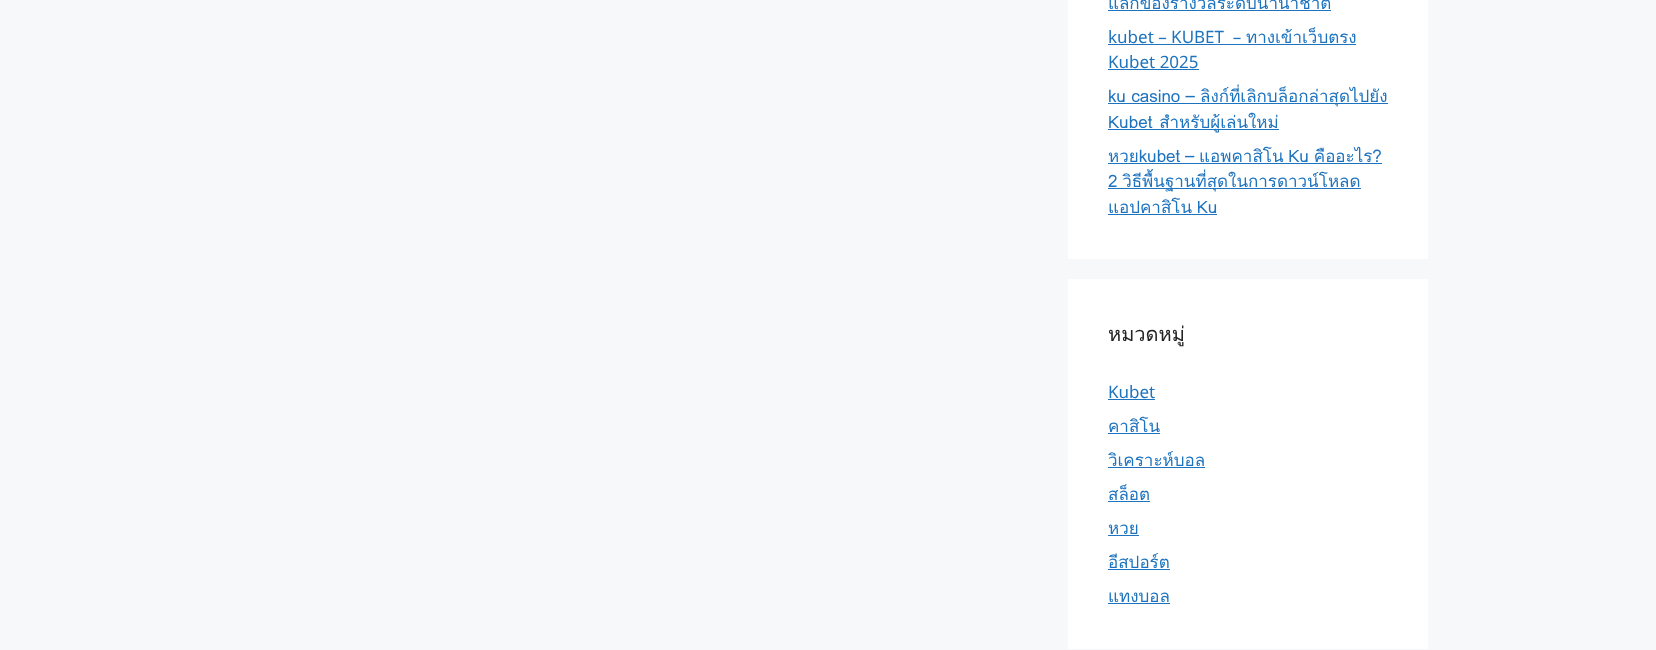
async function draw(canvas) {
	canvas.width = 1656;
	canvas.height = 650;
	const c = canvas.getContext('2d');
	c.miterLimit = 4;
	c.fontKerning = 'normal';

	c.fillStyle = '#f7f8f9';
	c.fillRect(0, 0, 1656, 650);
	c.fillStyle = '#fff';
	c.fillRect(1068, 0, 360, 259);
	c.font = '17px Loma';
	c.fillStyle = '#1e73be';
	c.fillText('แลกของรางวัลระดับนานาชาติ', 1108, 9);
	c.fillRect(1108, 10, 223, 1);
	c.font = '17px Noto Sans';
	c.fillText('kubet – KUBET  –', 1108, 43);
	c.fillRect(1108, 44, 248, 1);
	c.font = '17px Loma';
	c.fillText('ทางเข้าเว็บตรง', 1246, 43);
	c.font = '17px Noto Sans';
	c.fillText('Kubet 2025', 1108, 68);
	c.fillRect(1108, 69, 91, 1);
	c.fillRect(1108, 103, 280, 1);
	c.wordSpacing = '-0.5px';
	c.font = '17px Loma';
	c.fillText('ku casino – ลิงก์ที่เลิกบล็อกล่าสุดไปยัง', 1108, 102);
	c.fillRect(1108, 129, 171, 1);
	c.wordSpacing = '1px';
	c.fillText('Kubet สำหรับผู้เล่นใหม่', 1108, 128);
	c.wordSpacing = '-1px';
	c.fillText('หวยkubet – แอพคาสิโน Ku คืออะไร?', 1108, 162);
	c.fillRect(1108, 163, 274, 1);
	c.fillRect(1108, 188, 253, 1);
	c.fillText('2 วิธีพื้นฐานที่สุดในการดาวน์โหลด', 1108, 187);
	c.fillText('แอปคาสิโน Ku', 1108, 213);
	c.fillRect(1108, 214, 109, 1);
	c.fillStyle = '#fff';
	c.fillRect(1068, 279, 360, 370);
	c.wordSpacing = '0px';
	c.font = '20px Loma';
	c.fillStyle = '#222';
	c.fillText('หมวดหมู่', 1108, 341);
	c.font = '17px Noto Sans';
	c.fillStyle = '#1e73be';
	c.fillText('Kubet', 1108, 398);
	c.fillRect(1108, 399, 47, 1);
	c.font = '17px Loma';
	c.fillText('คาสิโน', 1108, 432);
	c.fillRect(1108, 433, 52, 1);
	c.fillText('วิเคราะห์บอล', 1108, 466);
	c.fillRect(1108, 467, 97, 1);
	c.fillText('สล็อต', 1108, 500);
	c.fillRect(1108, 501, 42, 1);
	c.fillText('หวย', 1108, 534);
	c.fillRect(1108, 535, 31, 1);
	c.fillText('อีสปอร์ต', 1108, 568);
	c.fillRect(1108, 569, 62, 1);
	c.fillText('แทงบอล', 1108, 602);
	c.fillRect(1108, 603, 62, 1);
}

draw(document.querySelector('canvas'));
